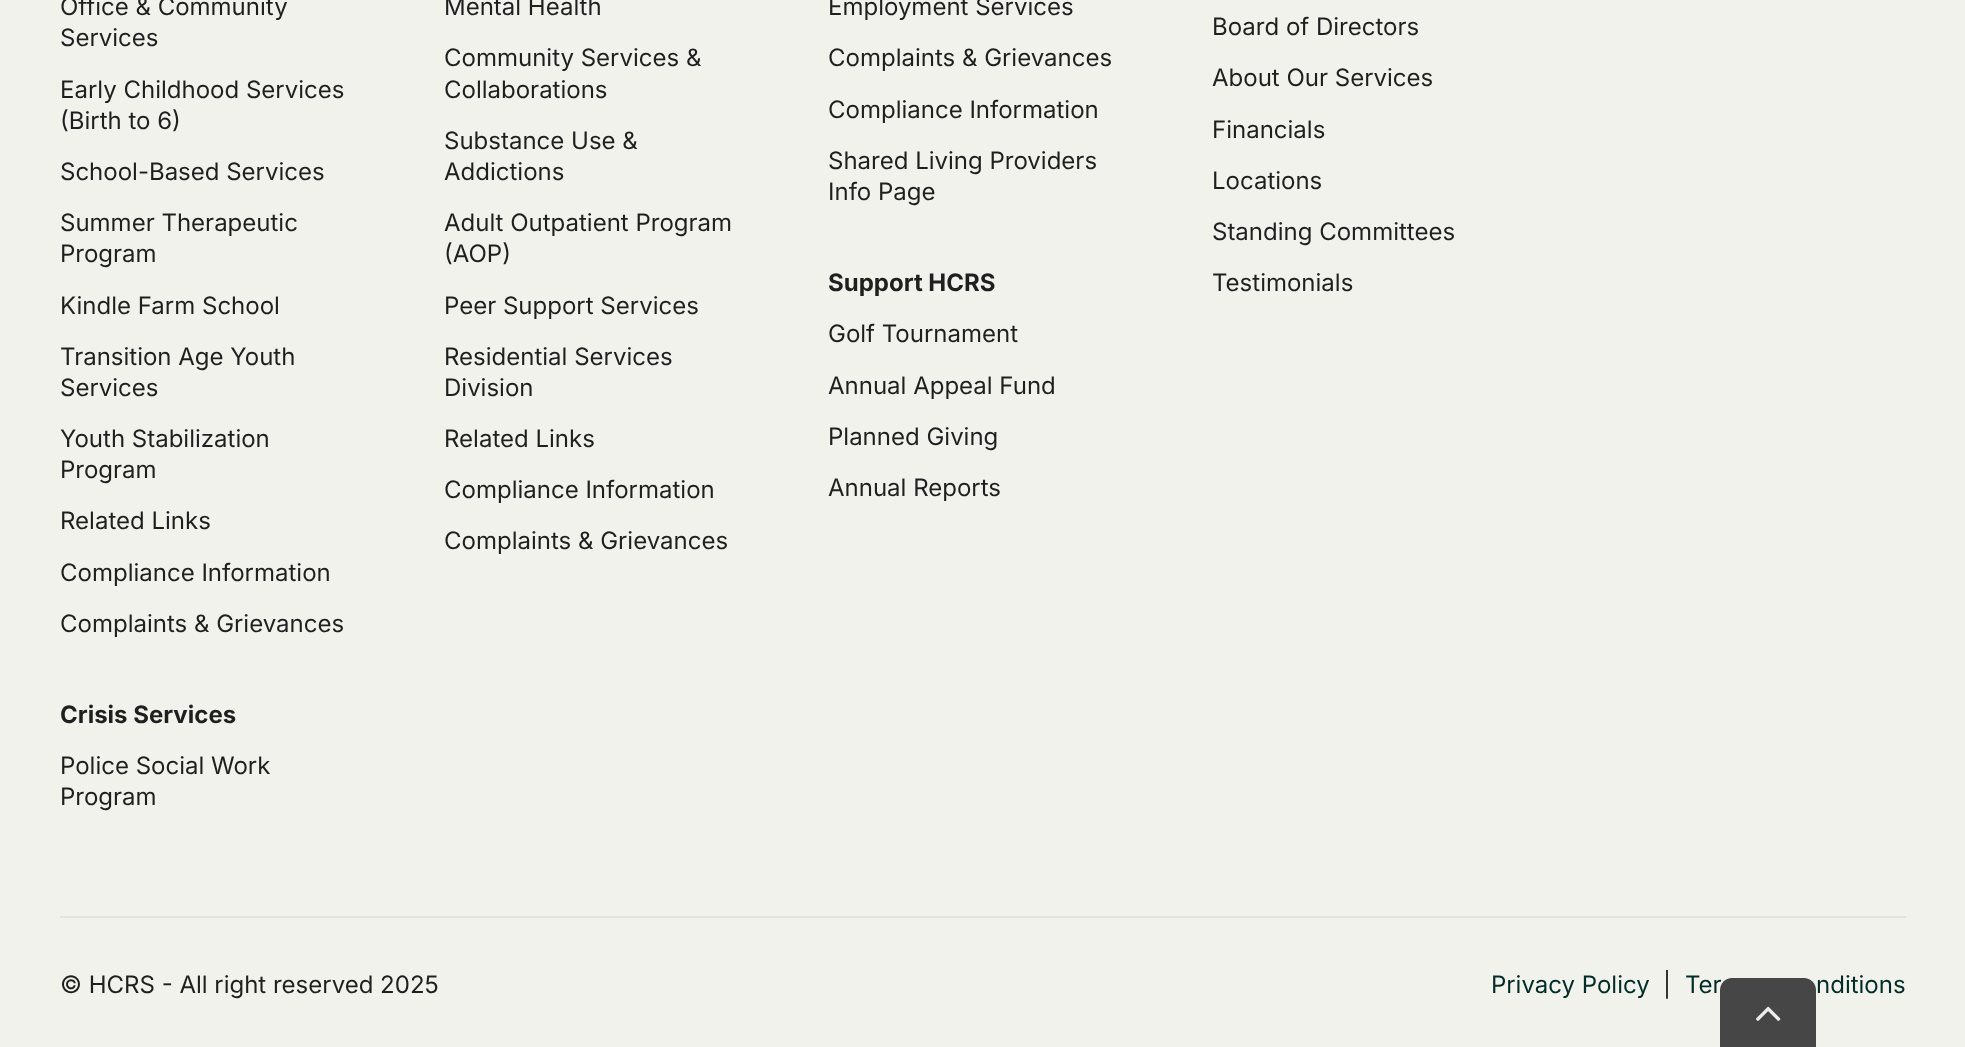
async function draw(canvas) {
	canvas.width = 1965;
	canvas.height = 1047;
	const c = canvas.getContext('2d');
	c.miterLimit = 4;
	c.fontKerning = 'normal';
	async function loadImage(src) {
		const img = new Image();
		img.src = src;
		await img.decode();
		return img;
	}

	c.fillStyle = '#f2f2ed';
	c.fillRect(0, 0, 1965, 1047);
	c.font = '24px Inter';
	c.fillStyle = '#1f1f1f';
	for (const [text, x, y] of [
		['Office & Community', 60, 15],
		['Services', 60, 46],
		['Early Childhood Services', 60, 98],
		['(Birth to 6)', 60, 129],
		['School-Based Services', 60, 180],
		['Summer Therapeutic', 60, 231],
		['Program', 60, 262],
		['Kindle Farm School', 60, 314],
		['Transition Age Youth', 60, 365],
		['Services', 60, 396],
		['Youth Stabilization', 60, 447],
		['Program', 60, 478],
		['Related Links', 60, 529],
		['Compliance Information', 60, 581],
		['Complaints & Grievances', 60, 632],
	]) {
		c.fillText(text, x, y);
	}
	c.font = 'bold 24px Inter';
	c.fillText('Crisis Services', 60, 723);
	c.font = '24px Inter';
	for (const [text, x, y] of [
		['Police Social Work', 60, 774],
		['Program', 60, 805],
		['Mental Health', 444, 15],
		['Community Services &', 444, 66],
		['Collaborations', 444, 98],
		['Substance Use &', 444, 149],
		['Addictions', 444, 180],
		['Adult Outpatient Program', 444, 231],
		['(AOP)', 444, 262],
		['Peer Support Services', 444, 314],
		['Residential Services', 444, 365],
		['Division', 444, 396],
		['Related Links', 444, 447],
		['Compliance Information', 444, 498],
		['Complaints & Grievances', 444, 549],
		['Employment Services', 828, 15],
		['Complaints & Grievances', 828, 66],
		['Compliance Information', 828, 118],
		['Shared Living Providers', 828, 169],
		['Info Page', 828, 200],
	]) {
		c.fillText(text, x, y);
	}
	c.font = 'bold 24px Inter';
	c.fillText('Support HCRS', 828, 291);
	c.font = '24px Inter';
	for (const [text, x, y] of [
		['Golf Tournament', 828, 342],
		['Annual Appeal Fund', 828, 394],
		['Planned Giving', 828, 445],
		['Annual Reports', 828, 496],
		['Board of Directors', 1212, 35],
		['About Our Services', 1212, 86],
		['Financials', 1212, 138],
		['Locations', 1212, 189],
		['Standing Committees', 1212, 240],
		['Testimonials', 1212, 291],
	]) {
		c.fillText(text, x, y);
	}
	c.fillStyle = '#e1e3e3';
	c.fillRect(60, 916, 1846, 2);
	c.fillStyle = '#1f1f1f';
	c.fillText('© HCRS - All right reserved 2025', 60, 993);
	c.fillStyle = '#002c28';
	c.fillText('Privacy Policy', 1491, 993);
	c.fillStyle = '#1f1f1f';
	c.fillText('|', 1663, 993);
	c.fillStyle = '#002c28';
	c.fillText('Ter', 1685, 993);
	c.fillText('nditions', 1816, 993);
	c.fillStyle = '#333333e6';
	c.beginPath();
	c.moveTo(1732, 978);
	c.lineTo(1804, 978);
	c.bezierCurveTo(1810.5, 978, 1816, 983.5, 1816, 990);
	c.lineTo(1816, 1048);
	c.lineTo(1720, 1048);
	c.lineTo(1720, 990);
	c.bezierCurveTo(1720, 983.5, 1725.5, 978, 1732, 978);
	c.closePath();
	c.fill();
	c.drawImage(await loadImage('img1.png'), 1756, 1006, 25, 15);
}

draw(document.querySelector('canvas'));
